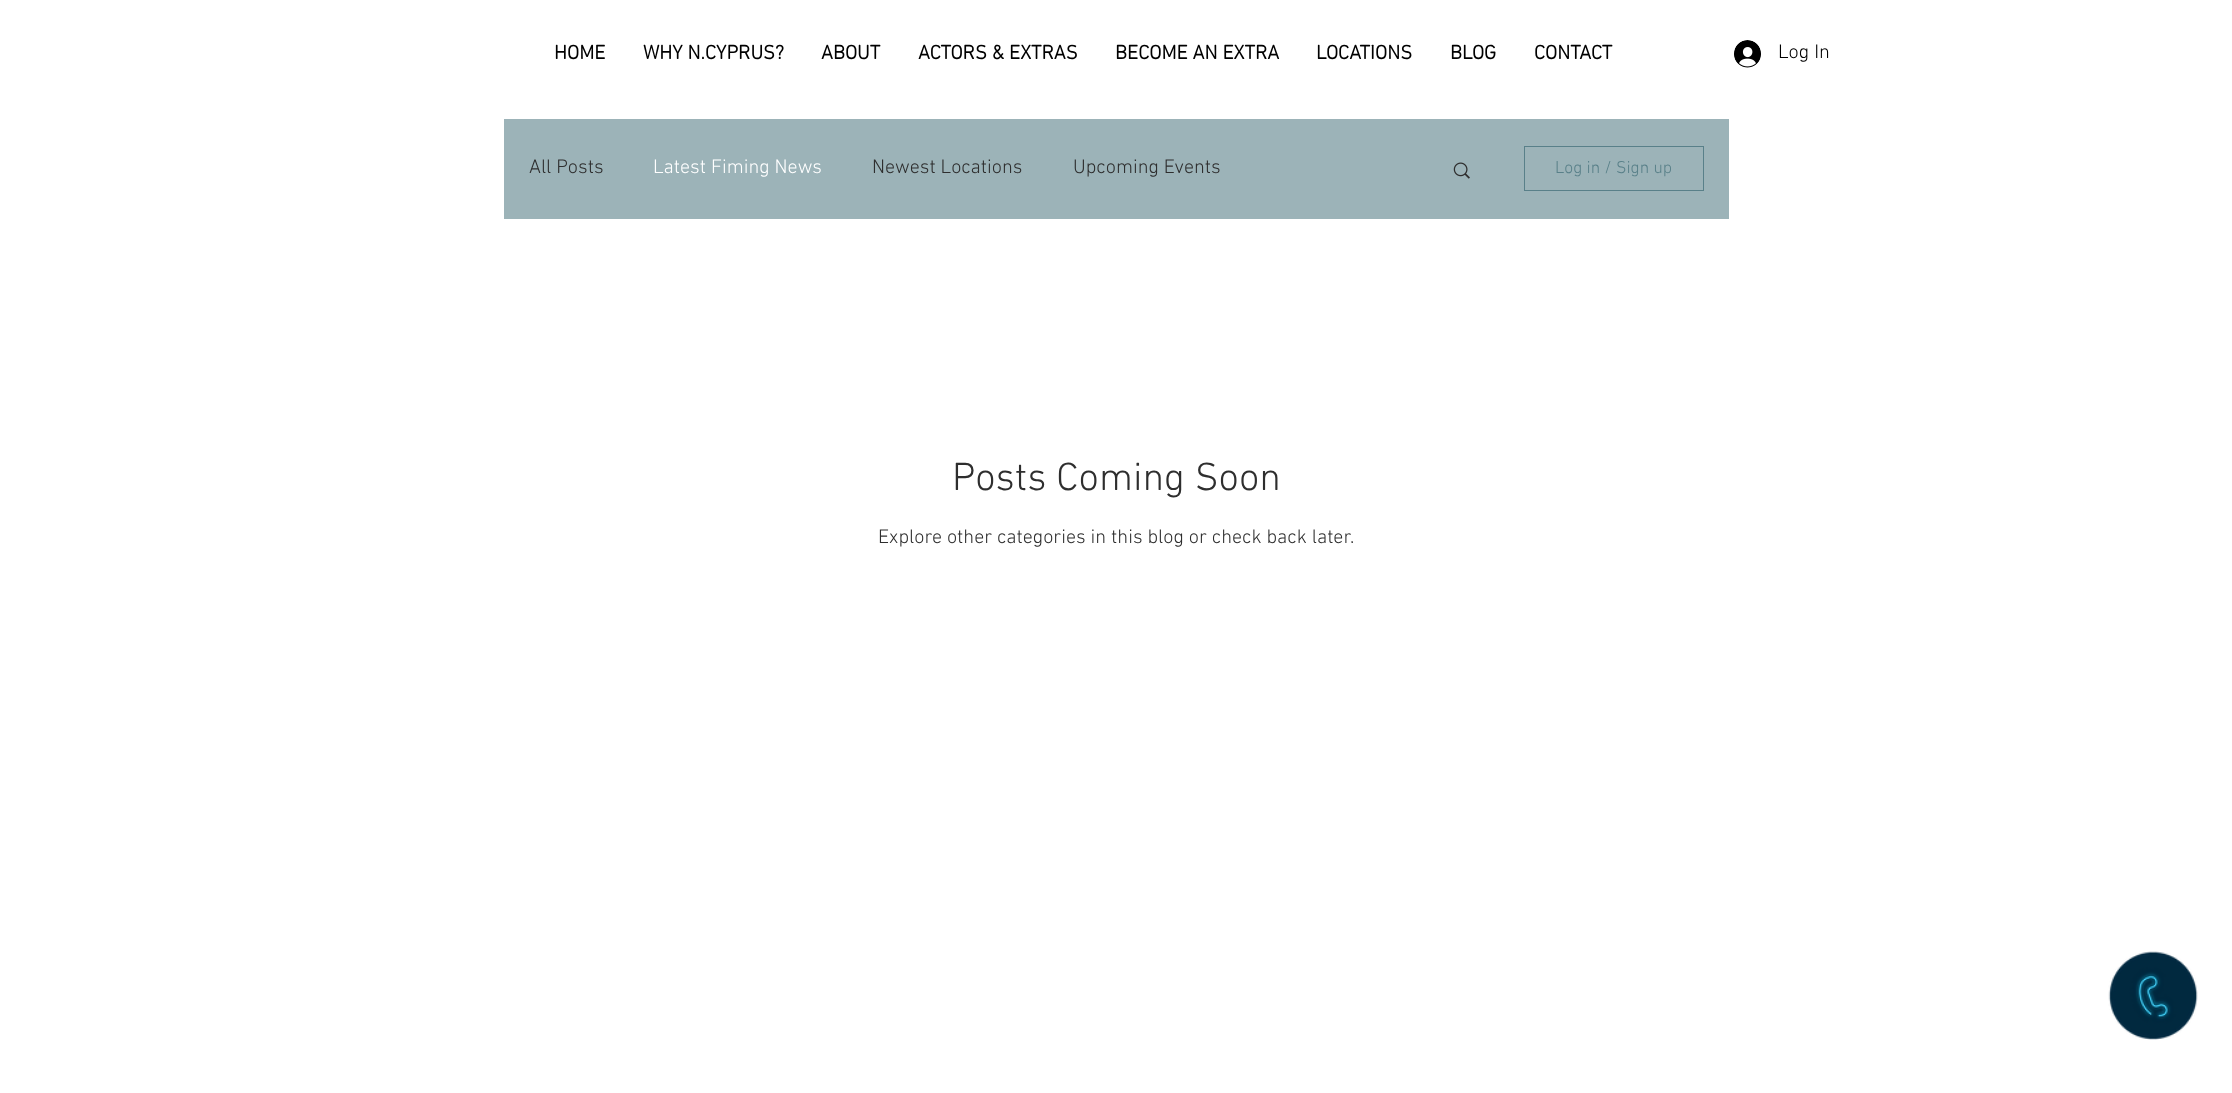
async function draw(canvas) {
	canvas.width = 2232;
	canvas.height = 1093;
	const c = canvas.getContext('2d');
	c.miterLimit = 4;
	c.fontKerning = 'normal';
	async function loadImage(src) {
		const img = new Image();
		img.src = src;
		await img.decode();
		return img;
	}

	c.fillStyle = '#fff';
	c.fillRect(0, 0, 2232, 1093);
	c.font = 'bold 20px "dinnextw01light"';
	c.fillStyle = '#000';
	for (const [text, x, y] of [
		['HOME', 554, 59],
		['WHY N.CYPRUS?', 643, 59],
		['ABOUT', 821, 59],
		['ACTORS & EXTRAS', 918, 59],
		['BECOME AN EXTRA', 1115, 59],
		['LOCATIONS', 1316, 59],
		['BLOG', 1450, 59],
		['CONTACT', 1534, 59],
	]) {
		c.fillText(text, x, y);
	}
	c.drawImage(await loadImage('img1.png'), 1734, 40, 27, 28);
	c.font = '300 20px "dinnextw01light"';
	c.fillText('Log In', 1778, 58);
	c.fillStyle = '#9cb3b8';
	c.fillRect(504, 119, 1225, 100);
	c.fillStyle = '#2e2e2e';
	c.fillText('All Posts', 529, 173);
	c.fillStyle = '#fff';
	c.fillText('Latest Fiming News', 653, 173);
	c.fillStyle = '#2e2e2e';
	c.fillText('Newest Locations', 872, 173);
	c.fillText('Upcoming Events', 1073, 173);
	c.drawImage(await loadImage('img2.png'), 1453, 162, 17, 17);
	c.strokeStyle = '#598089';
	c.strokeRect(1524.5, 146.5, 179, 44);
	c.font = '300 17.5px "dinnextw01light"';
	c.fillStyle = '#598089';
	c.fillText('Log in / Sign up', 1555, 173);
	c.font = '300 40px "dinnextw01light"';
	c.fillStyle = '#2e2e2e';
	c.fillText('Posts Coming Soon', 952, 490);
	c.font = '300 20px "dinnextw01light"';
	c.fillText('Explore other categories in this blog or check back later.', 878, 543);
	c.drawImage(await loadImage('img3.png'), 2108, 951, 90, 89);
}

draw(document.querySelector('canvas'));
